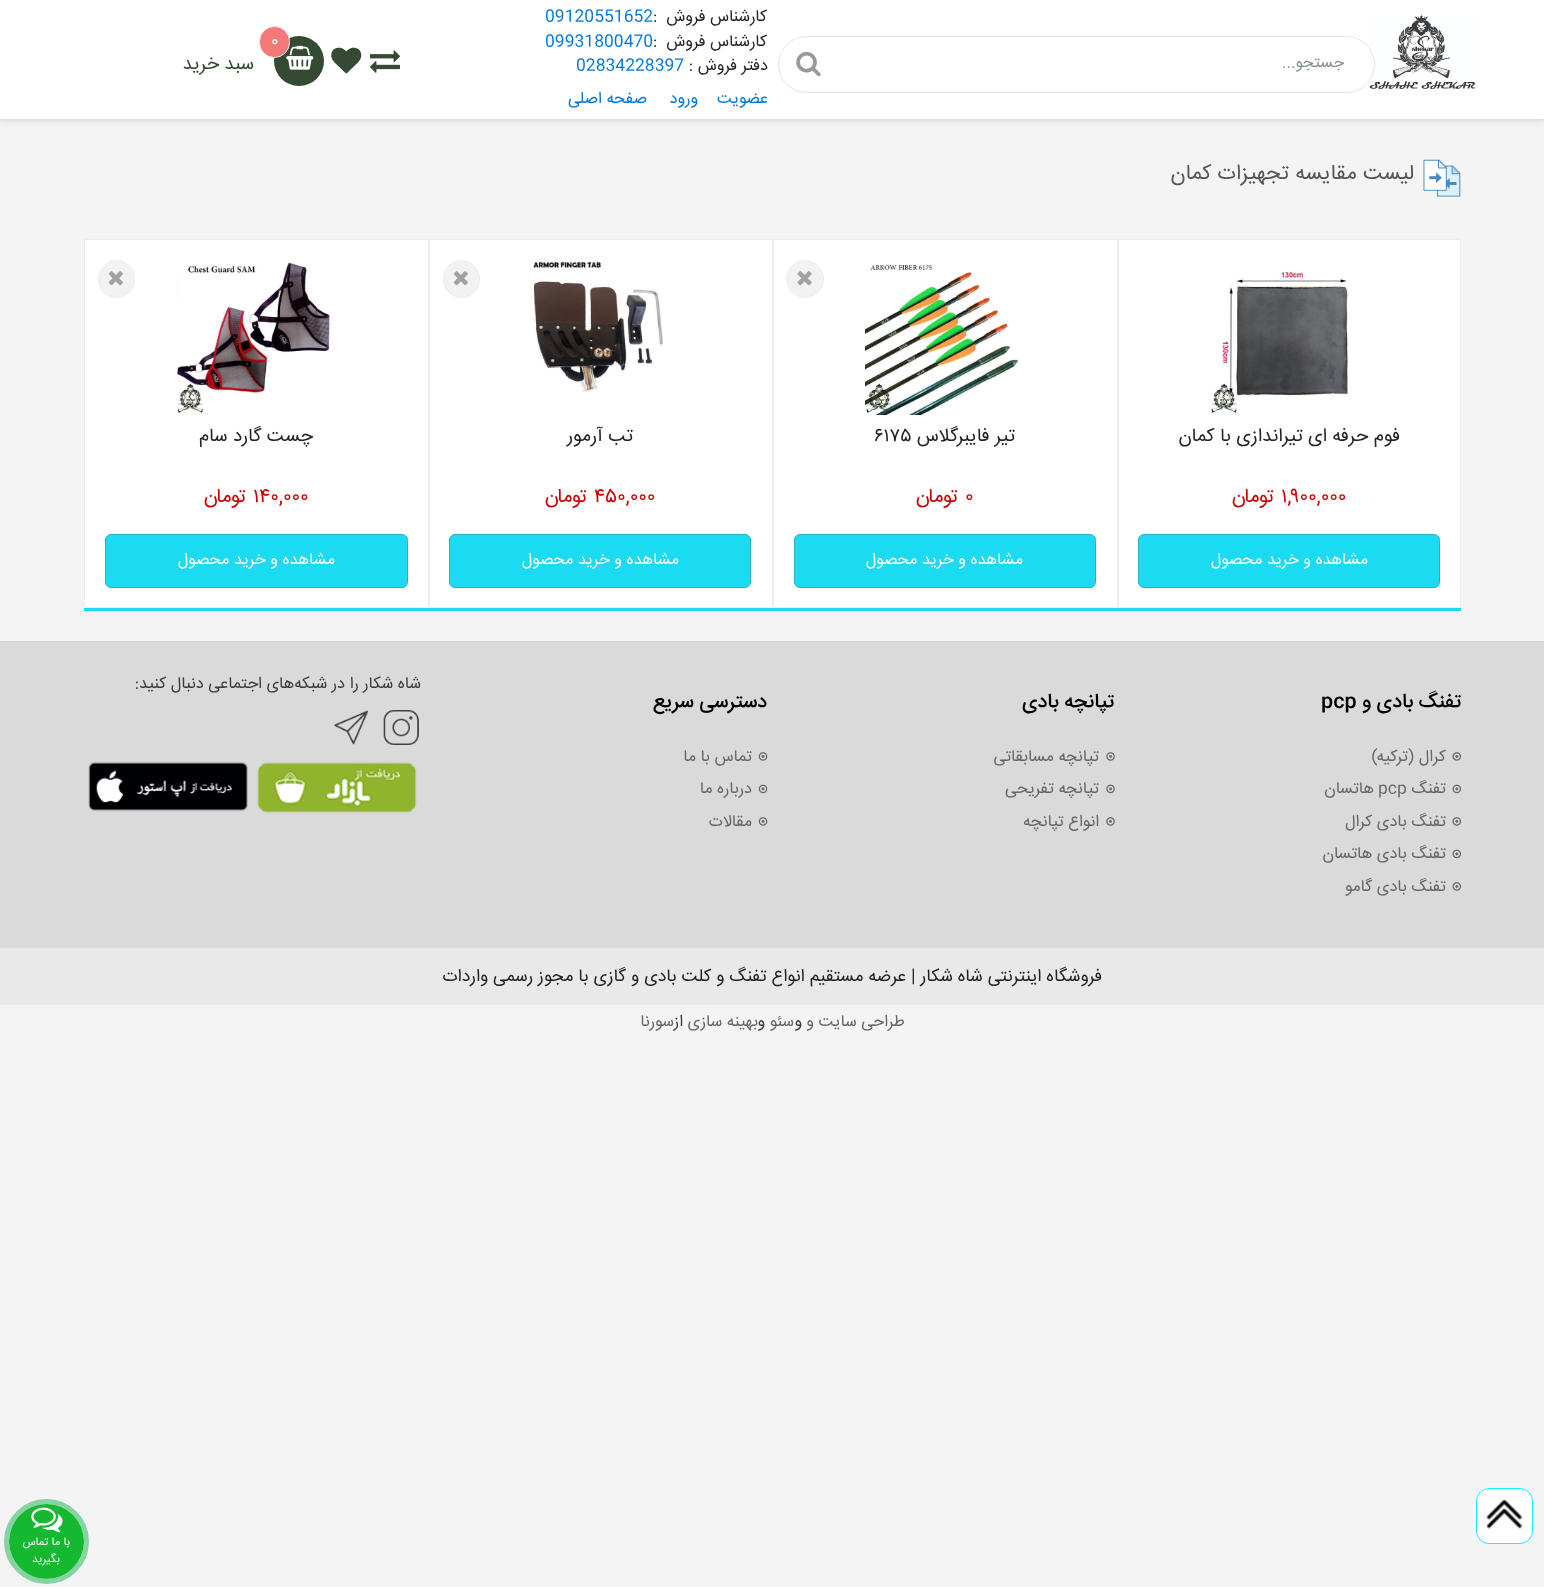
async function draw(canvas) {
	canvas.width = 1544;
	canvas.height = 1587;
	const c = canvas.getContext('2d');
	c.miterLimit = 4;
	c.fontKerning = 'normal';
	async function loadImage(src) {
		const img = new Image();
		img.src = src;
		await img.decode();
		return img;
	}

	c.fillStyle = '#f4f4f4';
	c.fillRect(0, 0, 1544, 1587);
	c.fillStyle = '#00000026';
	c.filter = 'blur(3px)';
	c.beginPath();
	c.rect(0, 1, 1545, 119);
	c.fill();
	c.filter = 'none';
	c.fillStyle = '#fff';
	c.fillRect(0, 0, 1544, 119);
	c.drawImage(await loadImage('img1.png'), 1369, 14, 107, 75);
	c.beginPath();
	c.roundRect(778.5, 36.5, 596, 56, 28);
	c.strokeStyle = '#e4e4e4';
	c.stroke();
	c.direction = 'rtl';
	c.font = '16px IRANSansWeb';
	c.fillStyle = '#868e96';
	c.fillText('جستجو...', 1344, 67);
	c.drawImage(await loadImage('img2.png'), 796, 51, 25, 26);
	c.font = '16.25px IRANSansWeb';
	c.fillStyle = '#212529';
	c.fillText('کارشناس فروش', 767, 21);
	c.direction = 'ltr';
	c.fillText(':', 653, 21);
	c.fillStyle = '#0275d8';
	c.fillText('09120551652', 545, 21);
	c.direction = 'rtl';
	c.fillStyle = '#212529';
	c.fillText('کارشناس فروش', 767, 46);
	c.direction = 'ltr';
	c.fillText(':', 653, 46);
	c.fillStyle = '#0275d8';
	c.fillText('09931800470', 545, 46);
	c.direction = 'rtl';
	c.fillStyle = '#212529';
	c.fillText('دفتر فروش :', 768, 70);
	c.direction = 'ltr';
	c.fillStyle = '#0275d8';
	c.fillText('02834228397', 576, 70);
	c.direction = 'rtl';
	for (const [text, x, y] of [
		['عضویت', 768, 103],
		['ورود', 698, 103],
		['صفحه اصلی', 647, 103],
	]) {
		c.fillText(text, x, y);
	}
	c.drawImage(await loadImage('img3.png'), 370, 50, 30, 23);
	c.drawImage(await loadImage('img4.png'), 331, 47, 31, 27);
	c.fillStyle = '#344a33';
	c.beginPath();
	c.arc(299, 61, 25, 0, 2 * Math.PI);
	c.fill();
	c.drawImage(await loadImage('img5.png'), 286, 45, 28, 25);
	c.fillStyle = '#f57979';
	c.beginPath();
	c.roundRect(259.5, 26.5, 30, 31, 15);
	c.fill();
	c.strokeStyle = '#e9e9e9';
	c.stroke();
	c.direction = 'ltr';
	c.font = '17.5px IRANSansWeb';
	c.fillStyle = '#fff';
	c.fillText('۰', 271, 46);
	c.direction = 'rtl';
	c.font = '18.75px IRANSansWeb';
	c.fillStyle = '#344a33';
	c.fillText('سبد خرید', 254, 69);
	c.drawImage(await loadImage('img6.png'), 1423, 159, 38, 38);
	c.font = '21.25px IRANSansWeb';
	c.fillStyle = '#555';
	c.fillText('لیست مقایسه', 1414, 179);
	c.fillText('تجهیزات کمان', 1289, 179);
	c.fillStyle = '#1bdbf2';
	c.fillRect(84, 608, 1377, 3);
	c.fillStyle = '#fff';
	c.beginPath();
	c.rect(1118.5, 239.5, 342, 368);
	c.fill();
	c.strokeStyle = '#ededed';
	c.stroke();
	c.drawImage(await loadImage('img7.png'), 1211, 271, 137, 142);
	c.font = '18.75px IRANSansWeb';
	c.fillStyle = '#212529';
	c.fillText('فوم حرفه ای تیراندازی با کمان', 1400, 441);
	c.direction = 'ltr';
	c.font = '20px IRANSansWeb';
	c.fillStyle = '#c00';
	c.fillText('۱,۹۰۰,۰۰۰', 1281, 502);
	c.direction = 'rtl';
	c.fillText('تومان', 1275, 502);
	c.fillStyle = '#1bdbf2';
	c.beginPath();
	c.roundRect(1138.5, 534.5, 301, 53, 5.5);
	c.fill();
	c.strokeStyle = '#26b5c6';
	c.stroke();
	c.font = '16.25px IRANSansWeb';
	c.fillStyle = '#fff';
	c.fillText('مشاهده و خرید محصول', 1368, 564);
	c.beginPath();
	c.rect(773.5, 239.5, 344, 368);
	c.fill();
	c.strokeStyle = '#ededed';
	c.stroke();
	c.drawImage(await loadImage('img8.png'), 865, 264, 154, 151);
	c.fillStyle = '#f2f2f2';
	c.beginPath();
	c.arc(805, 279, 18.5, 0, 2 * Math.PI);
	c.fill();
	c.stroke();
	c.drawImage(await loadImage('img9.png'), 797, 271, 15, 15);
	c.font = '18.75px IRANSansWeb';
	c.fillStyle = '#212529';
	c.fillText('تیر فایبرگلاس', 1015, 441);
	c.direction = 'ltr';
	c.fillText('۶۱۷۵', 874, 441);
	c.font = '20px IRANSansWeb';
	c.fillStyle = '#c00';
	c.fillText('۰', 965, 502);
	c.direction = 'rtl';
	c.fillText('تومان', 959, 502);
	c.fillStyle = '#1bdbf2';
	c.beginPath();
	c.roundRect(794.5, 534.5, 301, 53, 5.5);
	c.fill();
	c.strokeStyle = '#26b5c6';
	c.stroke();
	c.font = '16.25px IRANSansWeb';
	c.fillStyle = '#fff';
	c.fillText('مشاهده و خرید محصول', 1023, 564);
	c.beginPath();
	c.rect(429.5, 239.5, 343, 368);
	c.fill();
	c.strokeStyle = '#ededed';
	c.stroke();
	c.drawImage(await loadImage('img10.png'), 533, 261, 130, 131);
	c.fillStyle = '#f2f2f2';
	c.beginPath();
	c.roundRect(443.5, 260.5, 36, 37, 18);
	c.fill();
	c.stroke();
	c.drawImage(await loadImage('img11.png'), 453, 271, 15, 15);
	c.font = '18.75px IRANSansWeb';
	c.fillStyle = '#212529';
	c.fillText('تب آرمور', 633, 441);
	c.direction = 'ltr';
	c.font = '20px IRANSansWeb';
	c.fillStyle = '#c00';
	c.fillText('۴۵۰,۰۰۰', 594, 502);
	c.direction = 'rtl';
	c.fillText('تومان', 588, 502);
	c.fillStyle = '#1bdbf2';
	c.beginPath();
	c.roundRect(449.5, 534.5, 301, 53, 5.5);
	c.fill();
	c.strokeStyle = '#26b5c6';
	c.stroke();
	c.font = '16.25px IRANSansWeb';
	c.fillStyle = '#fff';
	c.fillText('مشاهده و خرید محصول', 679, 564);
	c.beginPath();
	c.rect(84.5, 239.5, 344, 368);
	c.fill();
	c.strokeStyle = '#ededed';
	c.stroke();
	c.drawImage(await loadImage('img12.png'), 176, 262, 157, 151);
	c.fillStyle = '#f2f2f2';
	c.beginPath();
	c.roundRect(98.5, 260.5, 36, 37, 18);
	c.fill();
	c.stroke();
	c.drawImage(await loadImage('img11.png'), 108, 271, 15, 15);
	c.font = '18.75px IRANSansWeb';
	c.fillStyle = '#212529';
	c.fillText('چست گارد سام', 313, 441);
	c.direction = 'ltr';
	c.font = '20px IRANSansWeb';
	c.fillStyle = '#c00';
	c.fillText('۱۴۰,۰۰۰', 253, 502);
	c.direction = 'rtl';
	c.fillText('تومان', 247, 502);
	c.fillStyle = '#1bdbf2';
	c.beginPath();
	c.roundRect(105.5, 534.5, 302, 53, 5.5);
	c.fill();
	c.strokeStyle = '#26b5c6';
	c.stroke();
	c.font = '16.25px IRANSansWeb';
	c.fillStyle = '#fff';
	c.fillText('مشاهده و خرید محصول', 335, 564);
	c.fillStyle = '#dadada';
	c.fillRect(0, 642, 1544, 306);
	c.fillStyle = '#d3d3d3';
	c.fillRect(0, 641, 1544, 1);
	c.fillStyle = '#3b3b3b';
	c.fillText('شاه شکار را در شبکه‌های اجتماعی دنبال کنید:', 421, 688);
	c.drawImage(await loadImage('img13.png'), 383, 710, 36, 35);
	c.drawImage(await loadImage('img14.png'), 334, 710, 34, 35);
	c.drawImage(await loadImage('img15.png'), 257, 762, 160, 51);
	c.drawImage(await loadImage('img16.png'), 88, 762, 160, 50);
	c.font = '500 20px IRANSansWeb';
	c.fillStyle = '#000';
	c.fillText('تفنگ بادی و', 1461, 707);
	c.direction = 'ltr';
	c.fillText('pcp', 1321, 707);
	c.drawImage(await loadImage('img17.png'), 1452, 752, 10, 9);
	c.direction = 'rtl';
	c.font = '16.25px IRANSansWeb';
	c.fillStyle = '#666';
	c.fillText('کرال (ترکیه)', 1446, 761);
	c.drawImage(await loadImage('img18.png'), 1452, 784, 9, 10);
	c.fillText('تفنگ', 1446, 793);
	c.direction = 'ltr';
	c.fillText('pcp', 1378, 793);
	c.direction = 'rtl';
	c.fillText('هاتسان', 1374, 793);
	c.drawImage(await loadImage('img17.png'), 1452, 817, 10, 9);
	c.fillText('تفنگ بادی کرال', 1446, 826);
	c.drawImage(await loadImage('img18.png'), 1452, 849, 9, 10);
	c.fillText('تفنگ بادی هاتسان', 1446, 858);
	c.drawImage(await loadImage('img17.png'), 1452, 882, 10, 9);
	c.fillText('تفنگ بادی گامو', 1446, 891);
	c.font = '500 20px IRANSansWeb';
	c.fillStyle = '#000';
	c.fillText('تپانچه بادی', 1114, 707);
	c.drawImage(await loadImage('img19.png'), 1106, 752, 9, 9);
	c.font = '16.25px IRANSansWeb';
	c.fillStyle = '#666';
	c.fillText('تپانچه مسابقاتی', 1099, 761);
	c.drawImage(await loadImage('img20.png'), 1106, 784, 9, 10);
	c.fillText('تپانچه تفریحی', 1099, 793);
	c.drawImage(await loadImage('img19.png'), 1106, 817, 9, 9);
	c.fillText('انواع تپانچه', 1099, 826);
	c.font = '500 20px IRANSansWeb';
	c.fillStyle = '#000';
	c.fillText('دسترسی سریع', 767, 707);
	c.drawImage(await loadImage('img21.png'), 758, 752, 10, 9);
	c.font = '16.25px IRANSansWeb';
	c.fillStyle = '#666';
	c.fillText('تماس با ما', 752, 761);
	c.drawImage(await loadImage('img22.png'), 758, 784, 10, 10);
	c.fillText('درباره ما', 752, 793);
	c.drawImage(await loadImage('img21.png'), 758, 817, 10, 9);
	c.fillText('مقالات', 752, 826);
	c.fillStyle = '#e9e9e9';
	c.fillRect(0, 948, 1544, 57);
	c.font = '17.5px IRANSansWeb';
	c.fillStyle = '#222';
	c.fillText('فروشگاه اینترنتی شاه شکار | عرضه مستقیم انواع تفنگ و کلت بادی و گازی با مجوز رسمی واردات', 1102, 981);
	c.font = '16.25px IRANSansWeb';
	c.fillStyle = '#666';
	c.fillText('طراحی سایت و', 905, 1026);
	c.fillStyle = '#3b3b3b';
	c.fillText('و', 802, 1026);
	c.fillStyle = '#666';
	c.fillText('سئو', 794, 1026);
	c.fillStyle = '#3b3b3b';
	c.fillText('و', 765, 1026);
	c.fillStyle = '#666';
	c.fillText('بهینه سازی', 758, 1026);
	c.fillStyle = '#3b3b3b';
	c.fillText('از', 683, 1026);
	c.fillStyle = '#666';
	c.fillText('سورنا', 674, 1026);
	c.drawImage(await loadImage('img23.png'), 1476, 1487, 56, 57);
	c.beginPath();
	c.roundRect(1476.5, 1488.5, 56, 55, 12.5);
	c.strokeStyle = '#10f3ff';
	c.stroke();
	c.fillStyle = '#15b92f';
	c.beginPath();
	c.arc(46.5, 1541.5, 37.5, 0, 2 * Math.PI);
	c.fill();
	c.drawImage(await loadImage('img24.png'), 31, 1507, 32, 26);
	c.font = '11.25px IRANSansWeb';
	c.fillStyle = '#fff';
	c.fillText('با ما تماس', 70, 1545);
	c.fillText('بگیرید', 60, 1562);
	c.beginPath();
	c.arc(46.5, 1541.5, 40, 0, 2 * Math.PI);
	c.strokeStyle = '#17b35480';
	c.lineWidth = 5;
	c.stroke();
}

draw(document.querySelector('canvas'));
